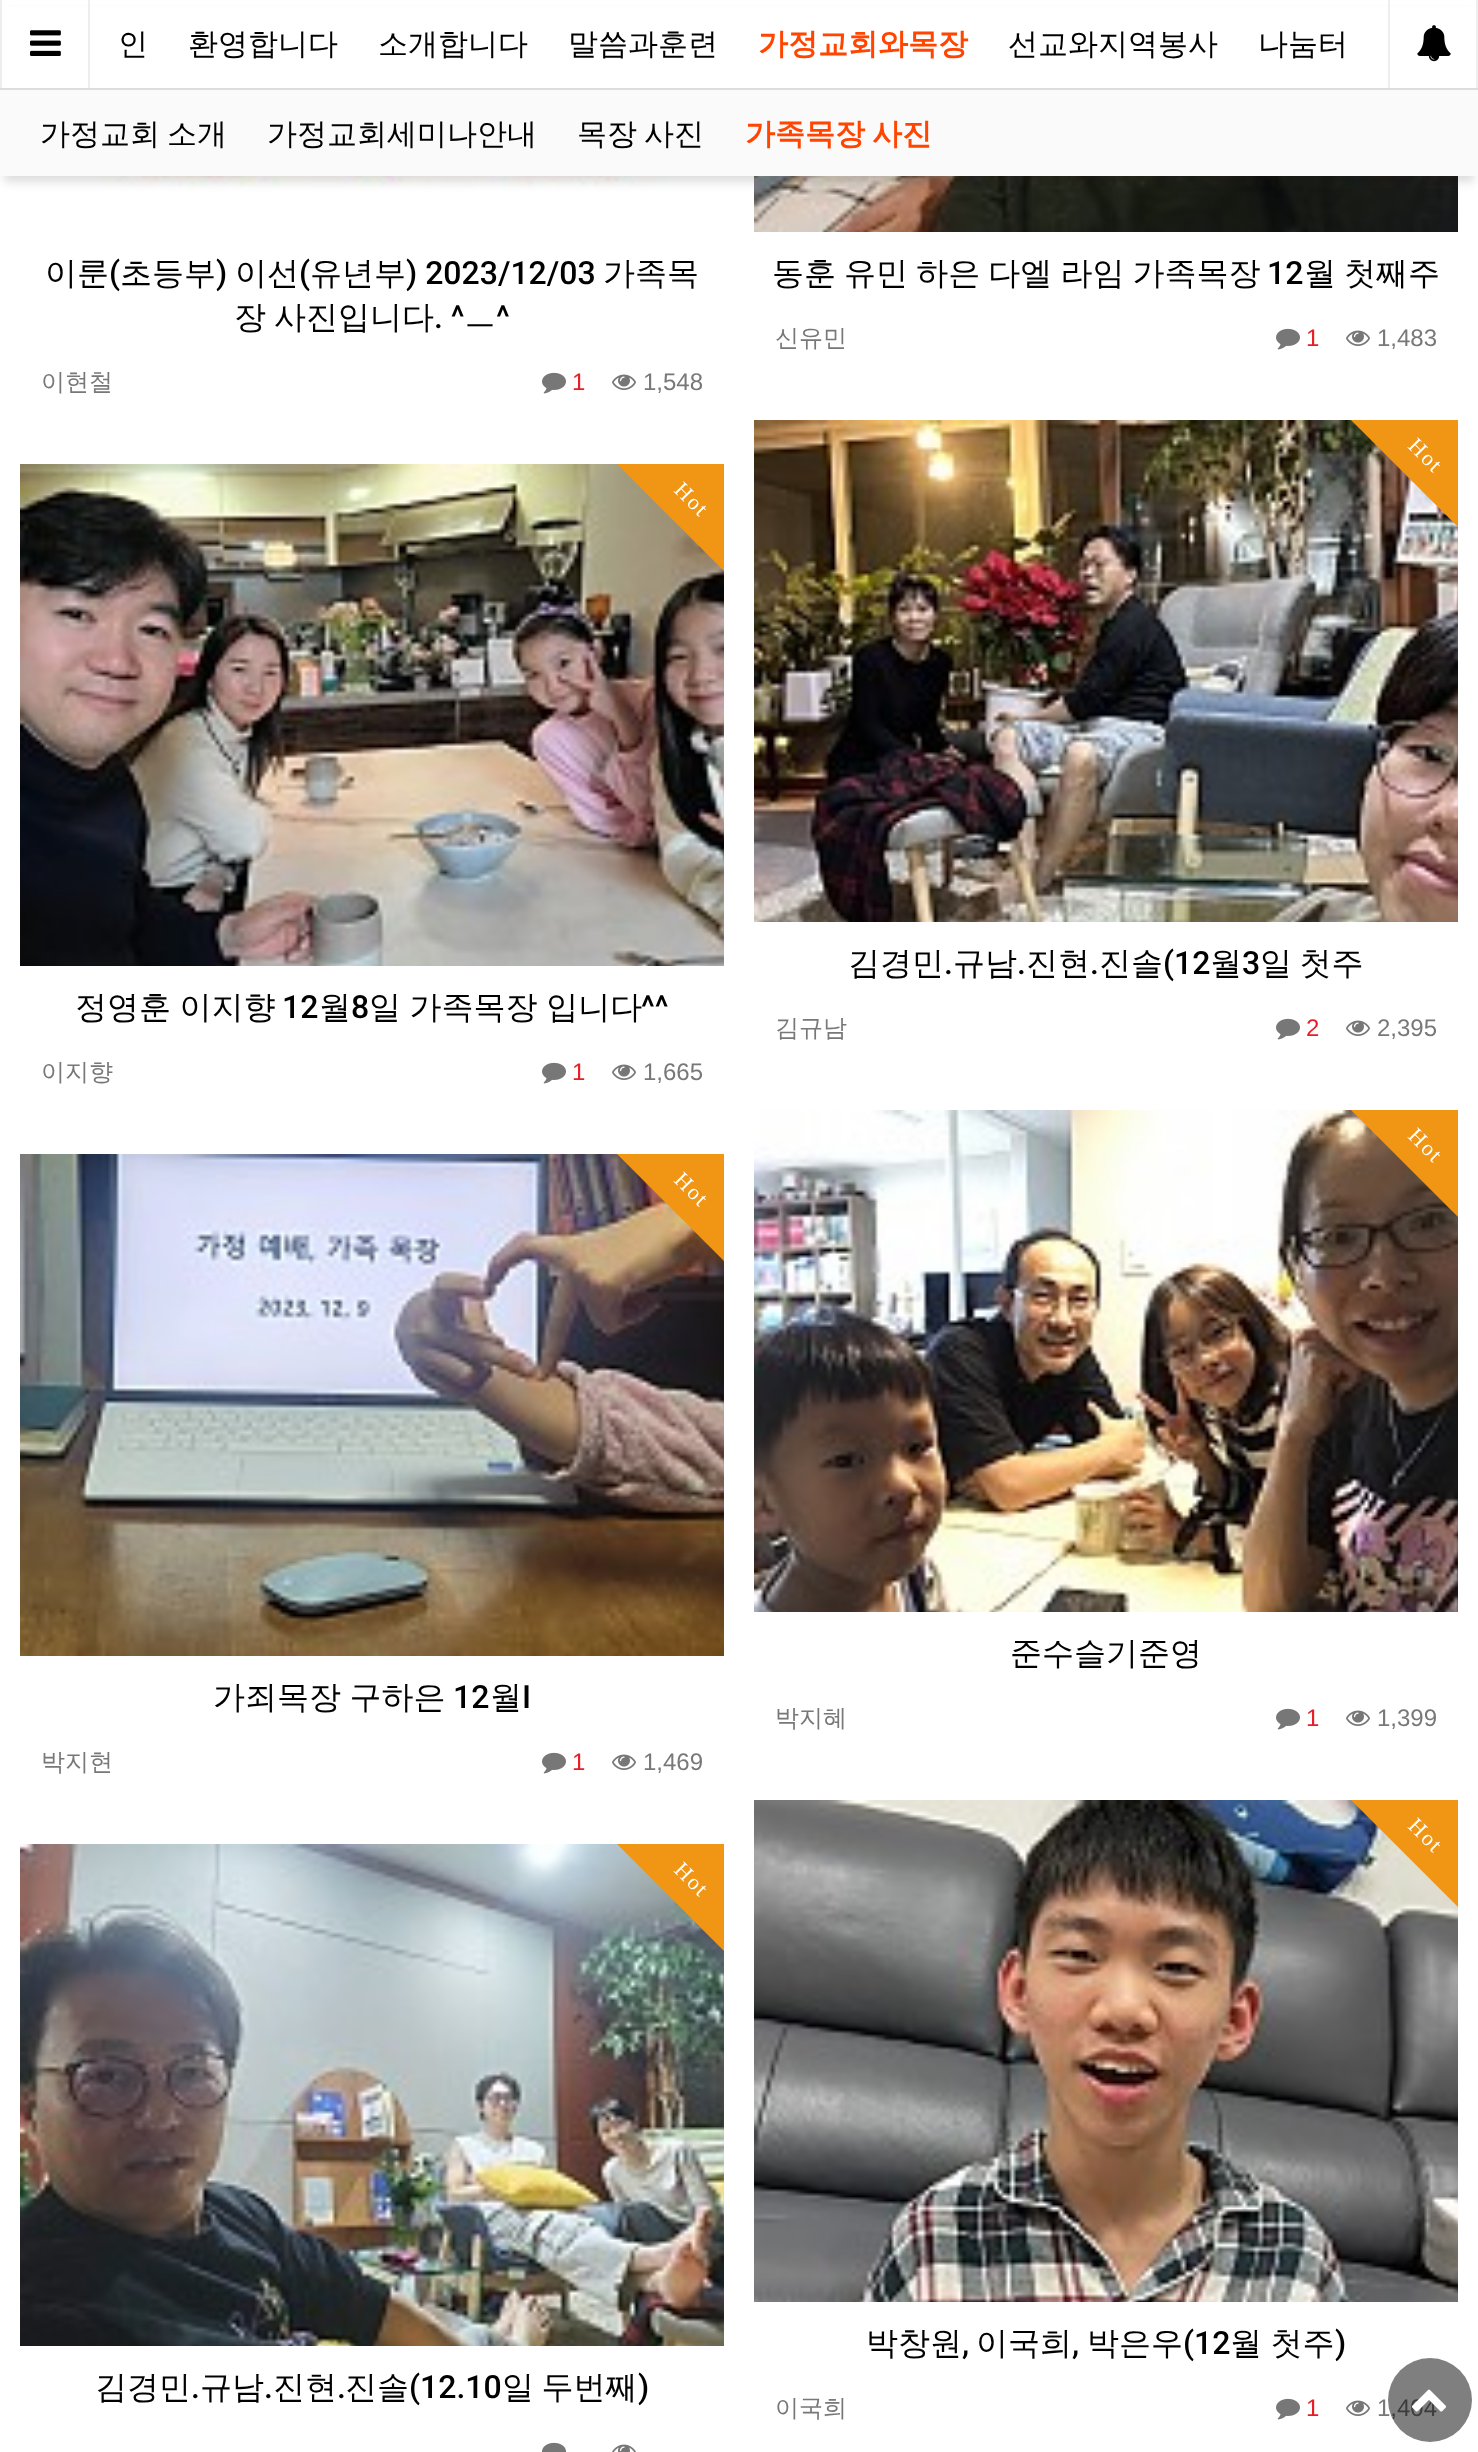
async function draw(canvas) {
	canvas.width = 1478;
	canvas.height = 2452;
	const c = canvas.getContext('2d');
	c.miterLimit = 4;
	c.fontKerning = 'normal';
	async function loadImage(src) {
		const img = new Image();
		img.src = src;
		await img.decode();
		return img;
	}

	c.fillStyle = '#fff';
	c.fillRect(0, 0, 1478, 2452);
	c.drawImage(await loadImage('img3.png'), 101, 176, 566, 12);
	c.drawImage(await loadImage('img6.png'), 754, 176, 704, 56);
	c.fillStyle = '#19191926';
	c.filter = 'blur(5px)';
	c.beginPath();
	c.rect(4, 14, 1470, 168);
	c.fill();
	c.filter = 'none';
	c.fillStyle = '#fff';
	c.fillRect(2, 7, 1474, 81);
	c.fillStyle = '#eee';
	c.fillRect(0, 0, 2, 90);
	c.drawImage(await loadImage('img1.png'), 30, 30, 31, 26);
	c.fillRect(88, 0, 2, 90);
	c.font = '500 30px WenQuanYi Zen Hei';
	c.fillStyle = '#000';
	for (const [text, x, y] of [
		['인', 118, 54],
		['환영합니다', 188, 54],
		['소개합니다', 378, 54],
		['말씀과훈련', 568, 54],
	]) {
		c.fillText(text, x, y);
	}
	c.font = 'bold 30px WenQuanYi Zen Hei';
	c.fillStyle = '#ff4500';
	c.fillText('가정교회와목장', 758, 54);
	c.font = '500 30px WenQuanYi Zen Hei';
	c.fillStyle = '#000';
	c.fillText('선교와지역봉사', 1008, 54);
	c.fillText('나눔터', 1258, 54);
	c.fillStyle = '#eee';
	c.fillRect(1476, 0, 2, 90);
	c.fillRect(1388, 0, 2, 90);
	c.drawImage(await loadImage('img2.png'), 1417, 25, 34, 37);
	c.fillStyle = '#fafafa';
	c.fillRect(0, 90, 1478, 86);
	c.fillStyle = '#ddd';
	c.fillRect(0, 88, 1478, 2);
	c.wordSpacing = '-2px';
	c.fillStyle = '#000';
	c.fillText('가정교회 소개', 40, 144);
	c.wordSpacing = '0px';
	c.fillText('가정교회세미나안내', 267, 144);
	c.wordSpacing = '-2px';
	c.fillText('목장 사진', 577, 144);
	c.font = 'bold 30px WenQuanYi Zen Hei';
	c.fillStyle = '#ff4500';
	c.fillText('가족목장 사진', 745, 144);
	c.wordSpacing = '0px';
	c.font = '500 32px WenQuanYi Zen Hei';
	c.fillStyle = '#000';
	c.fillText('이룬', 45, 284);
	c.font = '500 32px Roboto';
	c.fillText('(', 109, 284);
	c.font = '500 32px WenQuanYi Zen Hei';
	c.fillText('초등부', 120, 284);
	c.font = '500 32px Roboto';
	c.fillText(')', 216, 284);
	c.font = '500 32px WenQuanYi Zen Hei';
	c.fillText('이선', 235, 284);
	c.font = '500 32px Roboto';
	c.fillText('(', 299, 284);
	c.font = '500 32px WenQuanYi Zen Hei';
	c.fillText('유년부', 310, 284);
	c.font = '500 32px Roboto';
	c.fillText(') 2023/12/03', 406, 284);
	c.font = '500 32px WenQuanYi Zen Hei';
	for (const [text, x, y] of [
		['가족목', 603, 284],
		['장', 234, 328],
		['사진입니다', 274, 328],
	]) {
		c.fillText(text, x, y);
	}
	c.font = '500 32px Roboto';
	c.fillText('. ^', 434, 328);
	c.fillText('^', 496, 328);
	c.font = '500 32px WenQuanYi Zen Hei';
	c.fillText('ㅡ', 464, 328);
	c.font = '500 24px WenQuanYi Zen Hei';
	c.fillStyle = '#787878';
	c.fillText('이현철', 41, 390);
	c.drawImage(await loadImage('img4.png'), 542, 372, 24, 22);
	c.font = '24px Liberation Sans';
	c.fillStyle = '#e91b23';
	c.fillText('1', 572, 390);
	c.drawImage(await loadImage('img5.png'), 612, 374, 24, 16);
	c.fillStyle = '#787878';
	c.fillText('1,548', 643, 390);
	c.wordSpacing = '-1.5px';
	c.font = '500 32px WenQuanYi Zen Hei';
	c.fillStyle = '#000';
	c.fillText('동훈 유민 하은 다엘 라임 가족목장', 772, 284);
	c.wordSpacing = '0px';
	c.font = '500 32px Roboto';
	c.fillText('12', 1267, 284);
	c.wordSpacing = '-1.5px';
	c.font = '500 32px WenQuanYi Zen Hei';
	c.fillText('월 첫째주', 1304, 284);
	c.wordSpacing = '0px';
	c.font = '500 24px WenQuanYi Zen Hei';
	c.fillStyle = '#787878';
	c.fillText('신유민', 775, 346);
	c.drawImage(await loadImage('img4.png'), 1276, 328, 24, 22);
	c.font = '24px Liberation Sans';
	c.fillStyle = '#e91b23';
	c.fillText('1', 1306, 346);
	c.drawImage(await loadImage('img5.png'), 1346, 330, 24, 16);
	c.fillStyle = '#787878';
	c.fillText('1,483', 1377, 346);
	c.drawImage(await loadImage('img7.png'), 20, 464, 704, 502);
	c.save();
	c.beginPath();
	c.rect(20, 464, 704, 502);
	c.clip();
	c.fillStyle = '#f09614';
	c.beginPath();
	c.moveTo(637, 356);
	c.lineTo(835, 554);
	c.lineTo(771, 618);
	c.lineTo(573, 420);
	c.closePath();
	c.fill();
	c.restore();
	c.letterSpacing = '2px';
	c.font = '22px Liberation Serif';
	c.fillStyle = '#fff';
	c.save();
	c.translate(673, 491);
	c.rotate(45 * Math.PI / 180);
	c.fillText('Hot', 0, 0);
	c.restore();
	c.letterSpacing = '0px';
	c.wordSpacing = '-1px';
	c.font = '500 32px WenQuanYi Zen Hei';
	c.fillStyle = '#000';
	c.fillText('정영훈 이지향', 75, 1018);
	c.wordSpacing = '0px';
	c.font = '500 32px Roboto';
	c.fillText('12', 282, 1018);
	c.font = '500 32px WenQuanYi Zen Hei';
	c.fillText('월', 319, 1018);
	c.font = '500 32px Roboto';
	c.fillText('8', 351, 1018);
	c.wordSpacing = '-1px';
	c.font = '500 32px WenQuanYi Zen Hei';
	c.fillText('일 가족목장 입니다', 369, 1018);
	c.wordSpacing = '0px';
	c.font = '500 32px Roboto';
	c.fillText('^^', 641, 1018);
	c.font = '500 24px WenQuanYi Zen Hei';
	c.fillStyle = '#787878';
	c.fillText('이지향', 41, 1080);
	c.drawImage(await loadImage('img4.png'), 542, 1062, 24, 22);
	c.font = '24px Liberation Sans';
	c.fillStyle = '#e91b23';
	c.fillText('1', 572, 1080);
	c.drawImage(await loadImage('img5.png'), 612, 1064, 24, 16);
	c.fillStyle = '#787878';
	c.fillText('1,665', 643, 1080);
	c.drawImage(await loadImage('img8.png'), 754, 420, 704, 502);
	c.save();
	c.beginPath();
	c.rect(754, 420, 704, 502);
	c.clip();
	c.fillStyle = '#f09614';
	c.beginPath();
	c.moveTo(1371, 312);
	c.lineTo(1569, 510);
	c.lineTo(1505, 574);
	c.lineTo(1307, 376);
	c.closePath();
	c.fill();
	c.restore();
	c.letterSpacing = '2px';
	c.font = '22px Liberation Serif';
	c.fillStyle = '#fff';
	c.save();
	c.translate(1407, 447);
	c.rotate(45 * Math.PI / 180);
	c.fillText('Hot', 0, 0);
	c.restore();
	c.letterSpacing = '0px';
	c.font = '500 32px WenQuanYi Zen Hei';
	c.fillStyle = '#000';
	c.fillText('김경민', 848, 974);
	c.font = '500 32px Roboto';
	c.fillText('.', 944, 974);
	c.font = '500 32px WenQuanYi Zen Hei';
	c.fillText('규남', 953, 974);
	c.font = '500 32px Roboto';
	c.fillText('.', 1017, 974);
	c.font = '500 32px WenQuanYi Zen Hei';
	c.fillText('진현', 1026, 974);
	c.font = '500 32px Roboto';
	c.fillText('.', 1090, 974);
	c.font = '500 32px WenQuanYi Zen Hei';
	c.fillText('진솔', 1099, 974);
	c.font = '500 32px Roboto';
	c.fillText('(12', 1163, 974);
	c.font = '500 32px WenQuanYi Zen Hei';
	c.fillText('월', 1210, 974);
	c.font = '500 32px Roboto';
	c.fillText('3', 1242, 974);
	c.wordSpacing = '-2px';
	c.font = '500 32px WenQuanYi Zen Hei';
	c.fillText('일 첫주', 1260, 974);
	c.wordSpacing = '0px';
	c.font = '500 24px WenQuanYi Zen Hei';
	c.fillStyle = '#787878';
	c.fillText('김규남', 775, 1036);
	c.drawImage(await loadImage('img4.png'), 1276, 1018, 24, 22);
	c.font = '24px Liberation Sans';
	c.fillStyle = '#e91b23';
	c.fillText('2', 1306, 1036);
	c.drawImage(await loadImage('img5.png'), 1346, 1020, 24, 16);
	c.fillStyle = '#787878';
	c.fillText('2,395', 1377, 1036);
	c.drawImage(await loadImage('img9.png'), 20, 1154, 704, 502);
	c.save();
	c.beginPath();
	c.rect(20, 1154, 704, 502);
	c.clip();
	c.fillStyle = '#f09614';
	c.beginPath();
	c.moveTo(637, 1046);
	c.lineTo(835, 1244);
	c.lineTo(771, 1308);
	c.lineTo(573, 1110);
	c.closePath();
	c.fill();
	c.restore();
	c.letterSpacing = '2px';
	c.font = '22px Liberation Serif';
	c.fillStyle = '#fff';
	c.save();
	c.translate(673, 1181);
	c.rotate(45 * Math.PI / 180);
	c.fillText('Hot', 0, 0);
	c.restore();
	c.letterSpacing = '0px';
	c.wordSpacing = '-1px';
	c.font = '500 32px WenQuanYi Zen Hei';
	c.fillStyle = '#000';
	c.fillText('가죄목장 구하은', 213, 1708);
	c.wordSpacing = '0px';
	c.font = '500 32px Roboto';
	c.fillText('12', 453, 1708);
	c.font = '500 32px WenQuanYi Zen Hei';
	c.fillText('월', 490, 1708);
	c.font = '500 32px Roboto';
	c.fillText('I', 522, 1708);
	c.font = '500 24px WenQuanYi Zen Hei';
	c.fillStyle = '#787878';
	c.fillText('박지현', 41, 1770);
	c.drawImage(await loadImage('img4.png'), 542, 1752, 24, 22);
	c.font = '24px Liberation Sans';
	c.fillStyle = '#e91b23';
	c.fillText('1', 572, 1770);
	c.drawImage(await loadImage('img5.png'), 612, 1754, 24, 16);
	c.fillStyle = '#787878';
	c.fillText('1,469', 643, 1770);
	c.drawImage(await loadImage('img10.png'), 754, 1110, 704, 502);
	c.save();
	c.beginPath();
	c.rect(754, 1110, 704, 502);
	c.clip();
	c.fillStyle = '#f09614';
	c.beginPath();
	c.moveTo(1371, 1002);
	c.lineTo(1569, 1200);
	c.lineTo(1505, 1264);
	c.lineTo(1307, 1066);
	c.closePath();
	c.fill();
	c.restore();
	c.letterSpacing = '2px';
	c.font = '22px Liberation Serif';
	c.fillStyle = '#fff';
	c.save();
	c.translate(1407, 1137);
	c.rotate(45 * Math.PI / 180);
	c.fillText('Hot', 0, 0);
	c.restore();
	c.letterSpacing = '0px';
	c.font = '500 32px WenQuanYi Zen Hei';
	c.fillStyle = '#000';
	c.fillText('준수슬기준영', 1010, 1664);
	c.font = '500 24px WenQuanYi Zen Hei';
	c.fillStyle = '#787878';
	c.fillText('박지혜', 775, 1726);
	c.drawImage(await loadImage('img4.png'), 1276, 1708, 24, 22);
	c.font = '24px Liberation Sans';
	c.fillStyle = '#e91b23';
	c.fillText('1', 1306, 1726);
	c.drawImage(await loadImage('img5.png'), 1346, 1710, 24, 16);
	c.fillStyle = '#787878';
	c.fillText('1,399', 1377, 1726);
	c.drawImage(await loadImage('img11.png'), 20, 1844, 704, 502);
	c.save();
	c.beginPath();
	c.rect(20, 1844, 704, 502);
	c.clip();
	c.fillStyle = '#f09614';
	c.beginPath();
	c.moveTo(637, 1736);
	c.lineTo(835, 1934);
	c.lineTo(771, 1998);
	c.lineTo(573, 1800);
	c.closePath();
	c.fill();
	c.restore();
	c.letterSpacing = '2px';
	c.font = '22px Liberation Serif';
	c.fillStyle = '#fff';
	c.save();
	c.translate(673, 1871);
	c.rotate(45 * Math.PI / 180);
	c.fillText('Hot', 0, 0);
	c.restore();
	c.letterSpacing = '0px';
	c.font = '500 32px WenQuanYi Zen Hei';
	c.fillStyle = '#000';
	c.fillText('김경민', 95, 2398);
	c.font = '500 32px Roboto';
	c.fillText('.', 191, 2398);
	c.font = '500 32px WenQuanYi Zen Hei';
	c.fillText('규남', 200, 2398);
	c.font = '500 32px Roboto';
	c.fillText('.', 264, 2398);
	c.font = '500 32px WenQuanYi Zen Hei';
	c.fillText('진현', 273, 2398);
	c.font = '500 32px Roboto';
	c.fillText('.', 337, 2398);
	c.font = '500 32px WenQuanYi Zen Hei';
	c.fillText('진솔', 345, 2398);
	c.font = '500 32px Roboto';
	c.fillText('(12.10', 409, 2398);
	c.wordSpacing = '-2px';
	c.font = '500 32px WenQuanYi Zen Hei';
	c.fillText('일 두번째', 502, 2398);
	c.wordSpacing = '0px';
	c.font = '500 32px Roboto';
	c.fillText(')', 638, 2398);
	c.drawImage(await loadImage('img12.png'), 542, 2442, 24, 10);
	c.drawImage(await loadImage('img13.png'), 612, 2444, 24, 8);
	c.drawImage(await loadImage('img14.png'), 754, 1800, 704, 502);
	c.save();
	c.beginPath();
	c.rect(754, 1800, 704, 502);
	c.clip();
	c.fillStyle = '#f09614';
	c.beginPath();
	c.moveTo(1371, 1692);
	c.lineTo(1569, 1890);
	c.lineTo(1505, 1954);
	c.lineTo(1307, 1756);
	c.closePath();
	c.fill();
	c.restore();
	c.letterSpacing = '2px';
	c.font = '22px Liberation Serif';
	c.fillStyle = '#fff';
	c.save();
	c.translate(1407, 1827);
	c.rotate(45 * Math.PI / 180);
	c.fillText('Hot', 0, 0);
	c.restore();
	c.letterSpacing = '0px';
	c.font = '500 32px WenQuanYi Zen Hei';
	c.fillStyle = '#000';
	c.fillText('박창원', 866, 2354);
	c.font = '500 32px Roboto';
	c.fillText(',', 962, 2354);
	c.font = '500 32px WenQuanYi Zen Hei';
	c.fillText('이국희', 976, 2354);
	c.font = '500 32px Roboto';
	c.fillText(',', 1072, 2354);
	c.font = '500 32px WenQuanYi Zen Hei';
	c.fillText('박은우', 1087, 2354);
	c.font = '500 32px Roboto';
	c.fillText('(12', 1183, 2354);
	c.wordSpacing = '-1px';
	c.font = '500 32px WenQuanYi Zen Hei';
	c.fillText('월 첫주', 1230, 2354);
	c.wordSpacing = '0px';
	c.font = '500 32px Roboto';
	c.fillText(')', 1335, 2354);
	c.font = '500 24px WenQuanYi Zen Hei';
	c.fillStyle = '#787878';
	c.fillText('이국희', 775, 2416);
	c.drawImage(await loadImage('img4.png'), 1276, 2398, 24, 22);
	c.font = '24px Liberation Sans';
	c.fillStyle = '#e91b23';
	c.fillText('1', 1306, 2416);
	c.drawImage(await loadImage('img5.png'), 1346, 2400, 24, 16);
	c.fillStyle = '#787878';
	c.fillText('1,404', 1377, 2416);
	c.fillStyle = '#00000080';
	c.beginPath();
	c.arc(1430, 2400, 42, 0, 2 * Math.PI);
	c.fill();
	c.drawImage(await loadImage('img15.png'), 1411, 2389, 36, 23);
}

draw(document.querySelector('canvas'));
